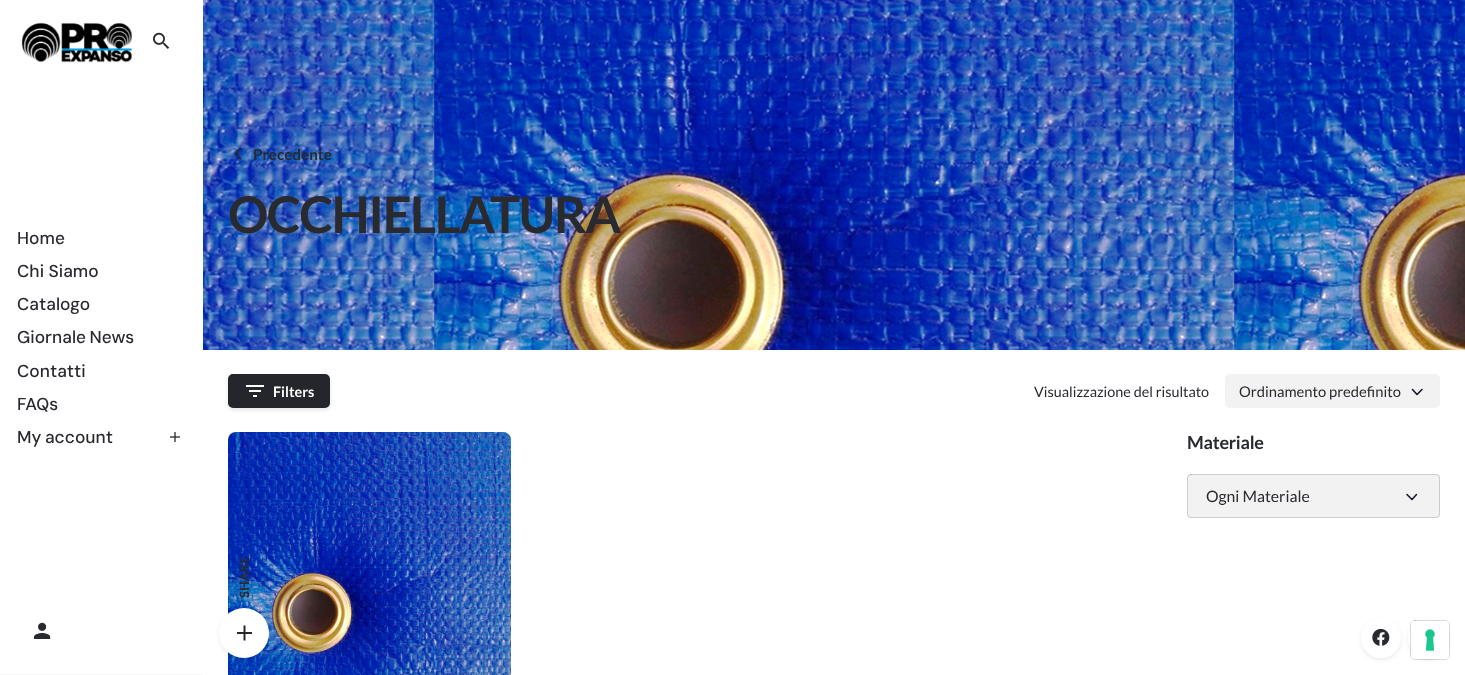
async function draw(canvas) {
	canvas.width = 1465;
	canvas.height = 675;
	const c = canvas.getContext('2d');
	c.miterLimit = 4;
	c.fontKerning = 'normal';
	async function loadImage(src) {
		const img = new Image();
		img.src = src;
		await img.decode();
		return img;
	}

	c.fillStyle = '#fff';
	c.fillRect(0, 0, 1465, 675);
	c.fillStyle = '#f5f5f5';
	c.fillRect(0, 674, 203, 1);
	c.drawImage(await loadImage('img1.png'), 21, 22, 111, 41);
	c.drawImage(await loadImage('img2.png'), 153, 32, 17, 17);
	c.font = '500 17.25px DM Sans';
	c.fillStyle = '#282a2f';
	for (const [text, x, y] of [
		['Home', 17, 244],
		['Chi Siamo', 17, 277],
		['Catalogo', 17, 310],
	]) {
		c.fillText(text, x, y);
	}
	c.wordSpacing = '-1px';
	c.fillText('Giornale News', 17, 343);
	c.wordSpacing = '0px';
	c.fillText('Contatti', 17, 377);
	c.fillText('FAQs', 17, 410);
	c.wordSpacing = '-1px';
	c.fillText('My account', 17, 443);
	c.drawImage(await loadImage('img3.png'), 170, 432, 10, 10);
	c.drawImage(await loadImage('img4.png'), 34, 622, 17, 17);
	c.drawImage(await loadImage('img5.png'), 203, 0, 1262, 350);
	c.drawImage(await loadImage('img6.png'), 234, 147, 8, 13);
	c.wordSpacing = '0px';
	c.font = 'bold 15.25px Lato';
	c.fillText('Precedente', 253, 160);
	c.letterSpacing = '-1.5px';
	c.font = 'bold 50.5px Lato';
	c.fillText('OCCHIELLATURA', 228, 233);
	c.fillStyle = '#0000001a';
	c.filter = 'blur(2px)';
	c.beginPath();
	c.roundRect(228, 376, 102, 34, 5);
	c.fill();
	c.filter = 'none';
	c.fillStyle = '#24262b';
	c.beginPath();
	c.roundRect(229, 375, 100, 32, 4);
	c.fill();
	c.strokeStyle = '#24262b';
	c.lineWidth = 2;
	c.stroke();
	c.drawImage(await loadImage('img7.png'), 246, 385, 18, 12);
	c.letterSpacing = '0px';
	c.font = 'bold 14.4px Lato';
	c.fillStyle = '#fff';
	c.fillText('Filters', 273, 397);
	c.font = '14.4px Lato';
	c.fillStyle = '#282a2f';
	c.fillText('Visualizzazione del risultato', 1034, 397);
	c.fillStyle = '#f2f2f2';
	c.beginPath();
	c.roundRect(1225, 374, 215, 34, 5);
	c.fill();
	c.font = '14.75px Lato';
	c.fillStyle = '#282a2f';
	c.fillText('Ordinamento predefinito', 1239, 397);
	c.beginPath();
	c.moveTo(1412.5, 389.5);
	c.lineTo(1417, 394.5);
	c.lineTo(1422, 389.5);
	c.strokeStyle = '#1b1b28';
	c.lineWidth = 1.6;
	c.lineCap = 'round';
	c.lineJoin = 'round';
	c.stroke();
	c.drawImage(await loadImage('img8.png'), 228, 432, 283, 243);
	c.letterSpacing = '-0.25px';
	c.font = 'bold 18px Lato';
	c.fillText('Materiale', 1187, 449);
	c.fillStyle = '#f2f2f2';
	c.beginPath();
	c.roundRect(1187, 474, 253, 44, 4);
	c.fill();
	c.beginPath();
	c.roundRect(1187.5, 474.5, 252, 43, 3.5);
	c.strokeStyle = '#91939566';
	c.lineWidth = 1;
	c.lineJoin = 'miter';
	c.stroke();
	c.letterSpacing = '0px';
	c.font = '15.75px Lato';
	c.fillStyle = '#282a2f';
	c.fillText('Ogni Materiale', 1206, 502);
	c.beginPath();
	c.moveTo(1407, 494.5);
	c.lineTo(1412, 499.5);
	c.lineTo(1416.5, 494.5);
	c.strokeStyle = '#1b1b28';
	c.lineWidth = 1.6;
	c.lineJoin = 'round';
	c.stroke();
	c.font = 'bold 13px Lato';
	c.save();
	c.translate(249, 598);
	c.rotate(-90 * Math.PI / 180);
	c.fillText('SHARE', 0, 0);
	c.restore();
	c.fillStyle = '#00000014';
	c.filter = 'blur(2px)';
	c.beginPath();
	c.roundRect(219, 610, 50, 50, 25);
	c.fill();
	c.filter = 'none';
	c.fillStyle = '#fff';
	c.beginPath();
	c.arc(244, 633, 25, 0, 2 * Math.PI);
	c.fill();
	c.drawImage(await loadImage('img9.png'), 237, 625, 15, 16);
	c.fillStyle = '#00000014';
	c.filter = 'blur(2px)';
	c.beginPath();
	c.roundRect(1361, 620, 40, 40, 20);
	c.fill();
	c.filter = 'none';
	c.fillStyle = '#fff';
	c.beginPath();
	c.arc(1381, 638, 19, 0, 2 * Math.PI);
	c.fill();
	c.strokeStyle = '#fff';
	c.lineWidth = 2;
	c.stroke();
	c.drawImage(await loadImage('img10.png'), 1372, 628, 18, 18);
	c.fillStyle = '#00000014';
	c.filter = 'blur(2px)';
	c.beginPath();
	c.roundRect(1408, 620, 40, 40, 20);
	c.fill();
	c.filter = 'none';
	c.fillStyle = '#fff';
	c.beginPath();
	c.arc(1428, 638, 19, 0, 2 * Math.PI);
	c.fill();
	c.stroke();
	c.beginPath();
	c.roundRect(1410.5, 620.5, 39, 39, 4.5);
	c.strokeStyle = '#00000026';
	c.lineWidth = 1;
	c.lineJoin = 'miter';
	c.stroke();
	c.beginPath();
	c.roundRect(1411, 621, 38, 38, 4);
	c.fill();
	c.drawImage(await loadImage('img11.png'), 1425, 629, 10, 22);
}

draw(document.querySelector('canvas'));
